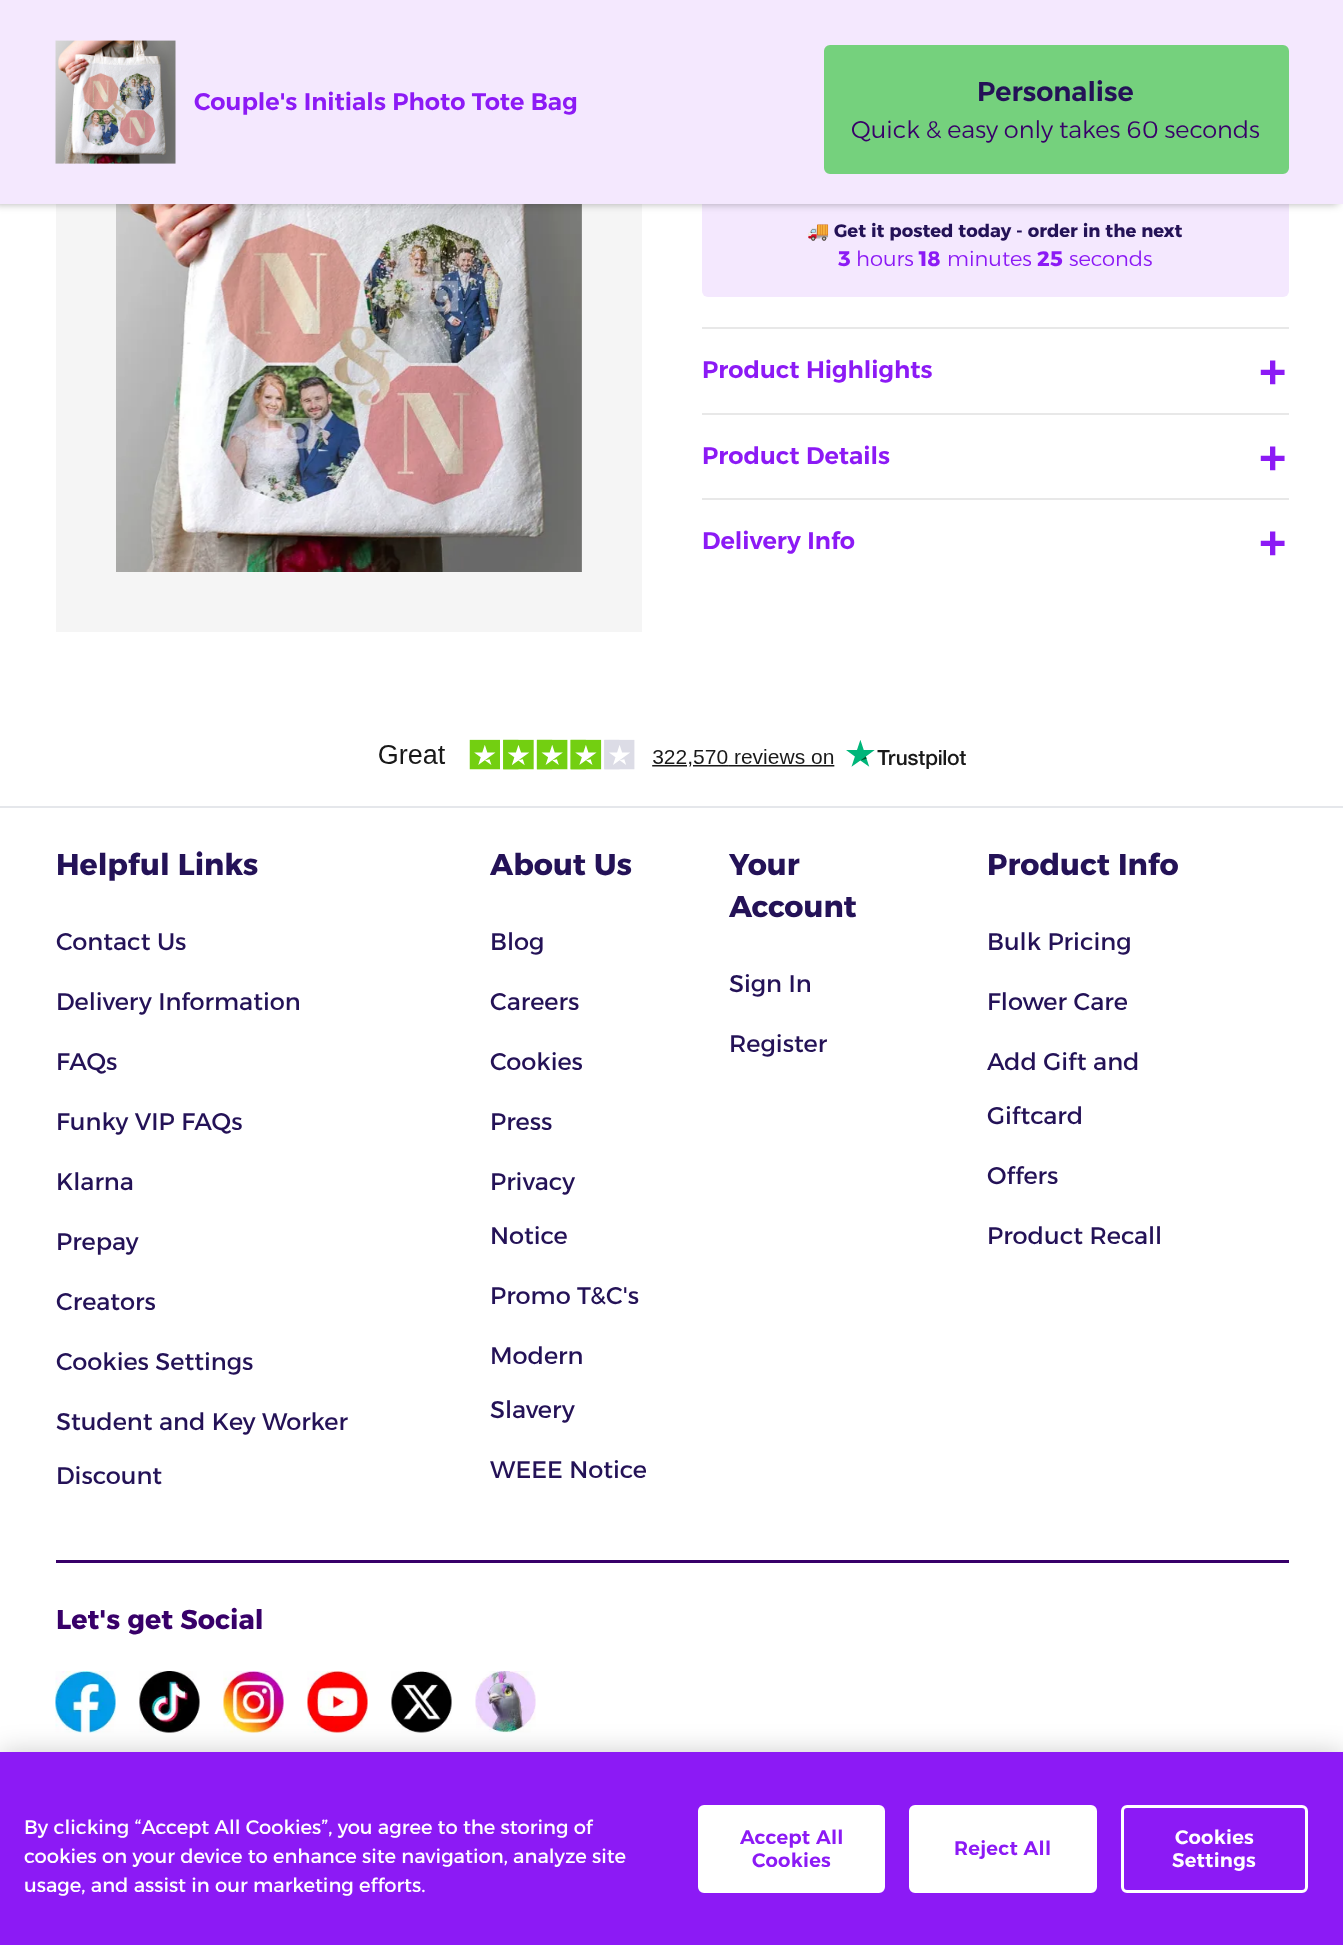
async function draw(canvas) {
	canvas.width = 1343;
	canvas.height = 1945;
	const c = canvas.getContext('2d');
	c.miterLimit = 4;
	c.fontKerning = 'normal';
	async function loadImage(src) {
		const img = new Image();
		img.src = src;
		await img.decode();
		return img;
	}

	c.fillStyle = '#fff';
	c.fillRect(0, 0, 1343, 1945);
	c.fillStyle = '#f5f5f5';
	c.fillRect(56, 204, 586, 428);
	c.drawImage(await loadImage('img2.png'), 116, 204, 466, 368);
	c.fillStyle = '#f4e8fe';
	c.beginPath();
	c.roundRect(702, 195, 587, 102, 6);
	c.fill();
	c.fillStyle = '#0000004d';
	c.filter = 'blur(4.5px)';
	c.beginPath();
	c.rect(-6, 0, 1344, 204);
	c.fill();
	c.filter = 'none';
	c.fillStyle = '#f4e8fe';
	c.fillRect(0, 0, 1343, 204);
	c.drawImage(await loadImage('img1.png'), 55, 40, 121, 124);
	c.font = '600 24px Alexandria';
	c.fillStyle = '#8c1af5';
	c.fillText('Couple\'s Initials Photo Tote Bag', 194, 110);
	c.fillStyle = '#75d17d';
	c.beginPath();
	c.roundRect(825, 46, 463, 127, 5);
	c.fill();
	c.strokeStyle = '#75d17d';
	c.lineWidth = 2;
	c.stroke();
	c.font = '600 27px Alexandria';
	c.fillStyle = '#241257';
	c.fillText('Personalise', 977, 101);
	c.font = '300 24px Alexandria';
	c.fillStyle = '#380069';
	c.fillText('Quick & easy only takes 60 seconds', 851, 138);
	c.font = 'bold 18px Noto Color Emoji';
	c.fillStyle = '#241257';
	c.fillText('🚚', 807, 237);
	c.font = 'bold 18px Alexandria';
	c.fillText('Get it posted today - order in the next', 834, 237);
	c.font = 'bold 21px Alexandria';
	c.fillStyle = '#8c1af5';
	c.fillText('3', 838, 266);
	c.font = '300 21px Alexandria';
	c.fillText('hours', 856, 266);
	c.font = 'bold 21px Alexandria';
	c.fillText('18', 919, 266);
	c.font = '300 21px Alexandria';
	c.fillText('minutes', 947, 266);
	c.font = 'bold 21px Alexandria';
	c.fillText('25', 1037, 266);
	c.font = '300 21px Alexandria';
	c.fillText('seconds', 1069, 266);
	c.fillStyle = '#e8e8e8';
	c.fillRect(702, 327, 587, 2);
	c.font = '600 24px Alexandria';
	c.fillStyle = '#8c1af5';
	c.fillText('Product Highlights', 702, 378);
	c.font = '600 54px Alexandria';
	c.fillText('+', 1259, 390);
	c.fillStyle = '#e8e8e8';
	c.fillRect(702, 413, 587, 2);
	c.font = '600 24px Alexandria';
	c.fillStyle = '#8c1af5';
	c.fillText('Product Details', 702, 464);
	c.font = '600 54px Alexandria';
	c.fillText('+', 1259, 476);
	c.fillStyle = '#e8e8e8';
	c.fillRect(702, 498, 587, 2);
	c.font = '600 24px Alexandria';
	c.fillStyle = '#8c1af5';
	c.fillText('Delivery Info', 702, 549);
	c.font = '600 54px Alexandria';
	c.fillText('+', 1259, 561);
	c.fillStyle = '#e5e7eb';
	c.fillRect(0, 806, 1343, 2);
	c.drawImage(await loadImage('img3.png'), 379, 739, 587, 31);
	c.font = 'bold 30px Alexandria';
	c.fillStyle = '#241257';
	c.fillText('Helpful Links', 56, 875);
	c.font = '24px Alexandria';
	for (const [text, x, y] of [
		['Contact Us', 56, 950],
		['Delivery Information', 56, 1010],
		['FAQs', 56, 1070],
		['Funky VIP FAQs', 56, 1130],
		['Klarna', 56, 1190],
		['Prepay', 56, 1250],
		['Creators', 56, 1310],
		['Cookies Settings', 56, 1370],
		['Student and Key Worker', 56, 1430],
		['Discount', 56, 1484],
	]) {
		c.fillText(text, x, y);
	}
	c.font = 'bold 30px Alexandria';
	c.fillText('About Us', 490, 875);
	c.font = '24px Alexandria';
	for (const [text, x, y] of [
		['Blog', 490, 950],
		['Careers', 490, 1010],
		['Cookies', 490, 1070],
		['Press', 490, 1130],
		['Privacy', 490, 1190],
		['Notice', 490, 1244],
		['Promo T&C\'s', 490, 1304],
		['Modern', 490, 1364],
		['Slavery', 490, 1418],
		['WEEE Notice', 490, 1478],
	]) {
		c.fillText(text, x, y);
	}
	c.font = 'bold 30px Alexandria';
	c.fillText('Your', 729, 875);
	c.fillText('Account', 729, 917);
	c.font = '24px Alexandria';
	c.fillText('Sign In', 729, 992);
	c.fillText('Register', 729, 1052);
	c.font = 'bold 30px Alexandria';
	c.fillText('Product Info', 987, 875);
	c.font = '24px Alexandria';
	for (const [text, x, y] of [
		['Bulk Pricing', 987, 950],
		['Flower Care', 987, 1010],
		['Add Gift and', 987, 1070],
		['Giftcard', 987, 1124],
		['Offers', 987, 1184],
		['Product Recall', 987, 1244],
	]) {
		c.fillText(text, x, y);
	}
	c.fillStyle = '#380069';
	c.fillRect(56, 1560, 1233, 3);
	c.font = 'bold 27px Alexandria';
	c.fillText('Let\'s get Social', 56, 1629);
	c.drawImage(await loadImage('img4.png'), 55, 1671, 61, 62);
	c.drawImage(await loadImage('img5.png'), 139, 1671, 61, 62);
	c.drawImage(await loadImage('img6.png'), 223, 1671, 61, 62);
	c.drawImage(await loadImage('img7.png'), 307, 1671, 61, 62);
	c.drawImage(await loadImage('img8.png'), 391, 1671, 61, 62);
	c.drawImage(await loadImage('img9.png'), 475, 1671, 61, 62);
	c.fillStyle = '#00000033';
	c.filter = 'blur(13.5px)';
	c.beginPath();
	c.rect(0, 1752, 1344, 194);
	c.fill();
	c.filter = 'none';
	c.fillStyle = '#8c1af5';
	c.fillRect(0, 1752, 1343, 193);
	c.font = '19.5px Alexandria';
	c.fillStyle = '#fff';
	for (const [text, x, y] of [
		['By clicking “Accept All Cookies”, you agree to the storing of', 24, 1834],
		['cookies on your device to enhance site navigation, analyze site', 24, 1863],
		['usage, and assist in our marketing efforts.', 24, 1892],
	]) {
		c.fillText(text, x, y);
	}
	c.beginPath();
	c.roundRect(699.5, 1806.5, 184, 85, 4.5);
	c.fill();
	c.strokeStyle = '#fff';
	c.lineWidth = 3;
	c.stroke();
	c.letterSpacing = '0.25px';
	c.font = '600 19.5px Alexandria';
	c.fillStyle = '#8c1af5';
	c.fillText('Accept All', 740, 1844);
	c.fillText('Cookies', 752, 1867);
	c.fillStyle = '#fff';
	c.beginPath();
	c.roundRect(910.5, 1806.5, 185, 85, 4.5);
	c.fill();
	c.stroke();
	c.fillStyle = '#8c1af5';
	c.fillText('Reject All', 954, 1855);
	c.beginPath();
	c.roundRect(1122.5, 1806.5, 184, 85, 4.5);
	c.stroke();
	c.fillStyle = '#fff';
	c.fillText('Cookies', 1175, 1844);
	c.fillText('Settings', 1172, 1867);
}

draw(document.querySelector('canvas'));
